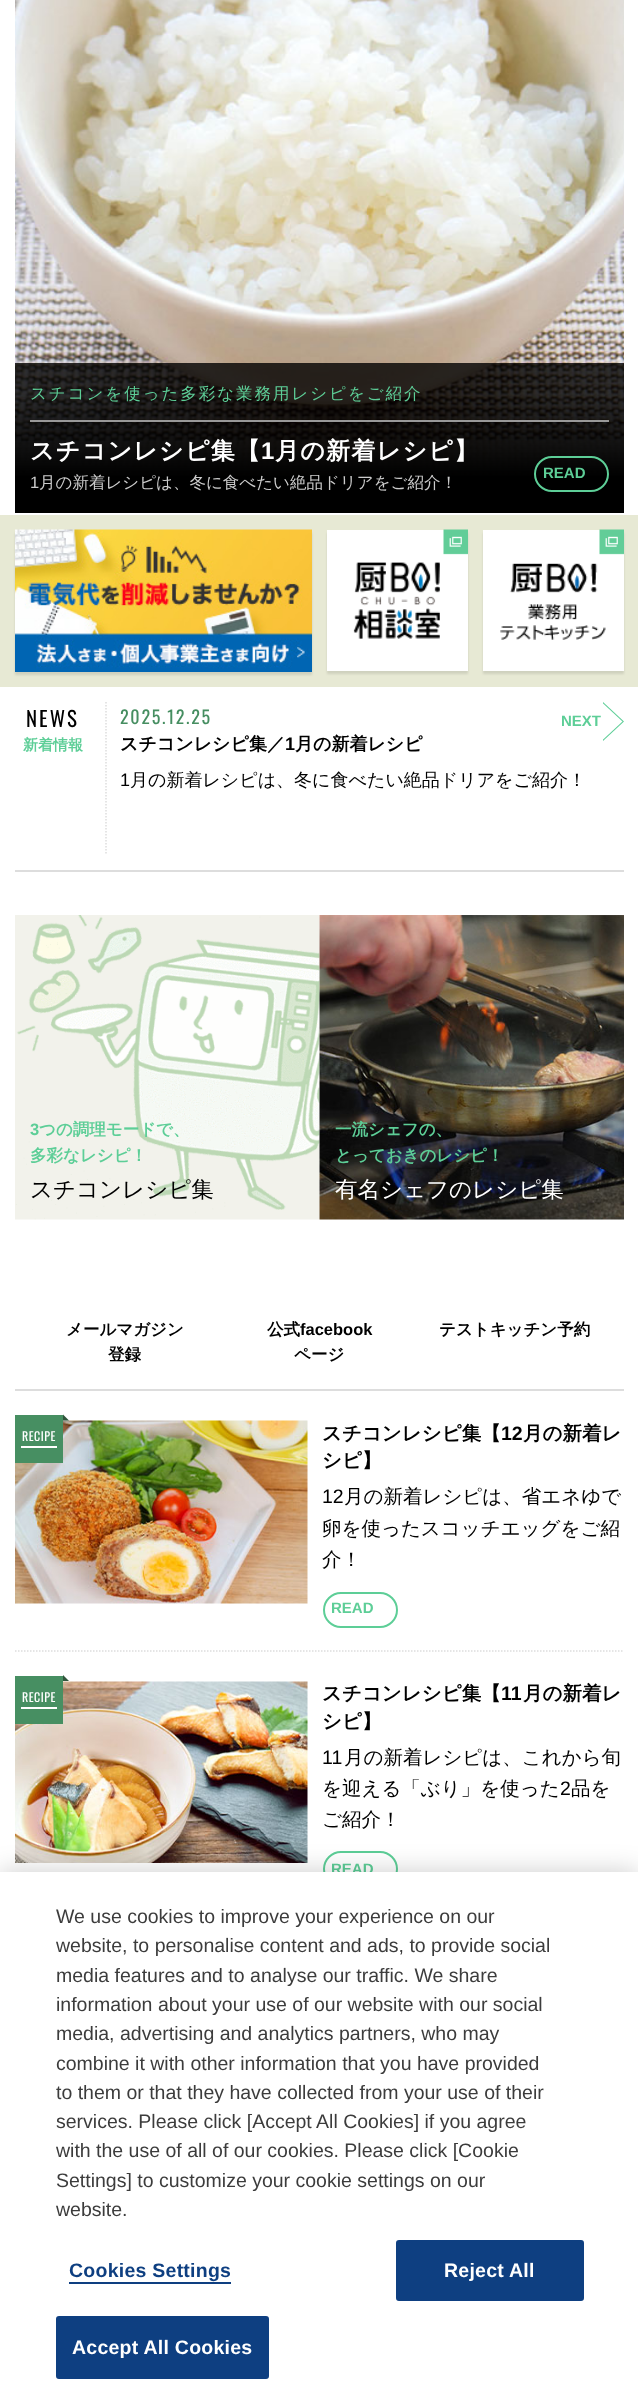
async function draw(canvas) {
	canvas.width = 638;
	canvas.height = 2393;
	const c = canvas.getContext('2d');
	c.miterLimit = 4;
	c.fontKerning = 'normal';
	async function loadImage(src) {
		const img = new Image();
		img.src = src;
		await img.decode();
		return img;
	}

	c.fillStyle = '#fff';
	c.fillRect(0, 0, 638, 2393);
	c.drawImage(await loadImage('img1.png'), 15, 0, 609, 513);
	c.fillStyle = '#999';
	c.fillRect(30, 420, 579, 2);
	c.letterSpacing = '1.95px';
	c.font = '500 16.5px WenQuanYi Zen Hei';
	c.fillStyle = '#5dce97';
	c.fillText('スチコンを使った多彩な業務用レシピをご紹介', 30, 399);
	c.letterSpacing = '1.25px';
	c.font = 'bold 24px WenQuanYi Zen Hei';
	c.fillStyle = '#fff';
	c.fillText('スチコンレシピ集【', 30, 459);
	c.font = 'bold 24px Liberation Sans';
	c.fillText('1', 261, 459);
	c.font = 'bold 24px WenQuanYi Zen Hei';
	c.fillText('月の新着レシピ】', 275, 459);
	c.letterSpacing = '0px';
	c.font = '16.5px Liberation Sans';
	c.fillStyle = '#ccc';
	c.fillText('1', 30, 488);
	c.font = '500 16.5px WenQuanYi Zen Hei';
	c.fillText('月の新着レシピは、冬に食べたい絶品ドリアをご紹介！', 39, 488);
	c.beginPath();
	c.roundRect(535, 457, 73, 34, 17);
	c.strokeStyle = '#5dce97';
	c.lineWidth = 2;
	c.stroke();
	c.font = 'bold 15px Liberation Sans';
	c.fillStyle = '#5dce97';
	c.fillText('READ', 543, 478);
	c.fillStyle = '#e7e9d4';
	c.fillRect(0, 515, 638, 172);
	c.fillStyle = '#0000001a';
	c.filter = 'blur(1px)';
	c.beginPath();
	c.rect(15, 533, 297, 142);
	c.fill();
	c.filter = 'none';
	c.drawImage(await loadImage('img2.png'), 15, 529, 297, 143);
	c.filter = 'blur(1px)';
	c.beginPath();
	c.rect(327, 533, 141, 141);
	c.fill();
	c.filter = 'none';
	c.fillStyle = '#fff';
	c.fillRect(327, 530, 141, 141);
	c.drawImage(await loadImage('img3.png'), 353, 529, 115, 110);
	c.fillStyle = '#0000001a';
	c.filter = 'blur(1px)';
	c.beginPath();
	c.rect(483, 533, 141, 141);
	c.fill();
	c.filter = 'none';
	c.fillStyle = '#fff';
	c.fillRect(483, 530, 141, 141);
	c.drawImage(await loadImage('img4.png'), 500, 529, 124, 111);
	c.letterSpacing = '2px';
	c.font = '21px Oswald';
	c.fillStyle = '#000';
	c.fillText('NEWS', 26, 727);
	c.letterSpacing = '0px';
	c.font = 'bold 15px WenQuanYi Zen Hei';
	c.fillStyle = '#5dce97';
	c.fillText('新着情報', 23, 750);
	c.beginPath();
	c.moveTo(106, 702);
	c.lineTo(106, 855);
	c.strokeStyle = '#ddd';
	c.lineWidth = 1.5;
	c.setLineDash([1.5, 1.5]);
	c.stroke();
	c.letterSpacing = '1.75px';
	c.font = '18px Oswald';
	c.fillStyle = '#468e61';
	c.fillText('2025.12.25', 120, 724);
	c.letterSpacing = '0px';
	c.font = 'bold 18px WenQuanYi Zen Hei';
	c.fillStyle = '#000';
	c.fillText('スチコンレシピ集／', 120, 750);
	c.font = 'bold 18px Liberation Sans';
	c.fillText('1', 285, 750);
	c.font = 'bold 18px WenQuanYi Zen Hei';
	c.fillText('月の新着レシピ', 295, 750);
	c.font = '18px Liberation Sans';
	c.fillText('1', 120, 786);
	c.font = '500 18px WenQuanYi Zen Hei';
	c.fillText('月の新着レシピは、冬に食べたい絶品ドリアをご紹介！', 130, 786);
	c.fillStyle = '#5dce97';
	c.beginPath();
	c.moveTo(603, 741);
	c.lineTo(603, 702);
	c.lineTo(624, 721.5);
	c.closePath();
	c.fill();
	c.fillStyle = '#fff';
	c.beginPath();
	c.moveTo(601.5, 741);
	c.lineTo(601.5, 702);
	c.lineTo(622.5, 721.5);
	c.closePath();
	c.fill();
	c.font = 'bold 15px Liberation Sans';
	c.fillStyle = '#5dce97';
	c.fillText('NEXT', 561, 726);
	c.fillStyle = '#ddd';
	c.fillRect(15, 870, 609, 2);
	c.drawImage(await loadImage('img5.png'), 15, 915, 305, 305);
	c.font = 'bold 16.5px Liberation Sans';
	c.fillStyle = '#5dce97';
	c.fillText('3', 30, 1135);
	c.font = 'bold 16.5px WenQuanYi Zen Hei';
	c.fillText('つの調理モードで、', 39, 1135);
	c.fillText('多彩なレシピ！', 30, 1161);
	c.font = '500 22.5px WenQuanYi Zen Hei';
	c.fillStyle = '#000';
	c.fillText('スチコンレシピ集', 30, 1197);
	c.drawImage(await loadImage('img6.png'), 319, 915, 305, 305);
	c.font = 'bold 16.5px WenQuanYi Zen Hei';
	c.fillStyle = '#5dce97';
	c.fillText('一流シェフの、', 335, 1135);
	c.fillText('とっておきのレシピ！', 335, 1161);
	c.font = '500 22.5px WenQuanYi Zen Hei';
	c.fillStyle = '#fff';
	c.fillText('有名シェフのレシピ集', 335, 1197);
	c.font = 'bold 16.5px WenQuanYi Zen Hei';
	c.fillStyle = '#000';
	for (const [text, x, y] of [
		['メールマガジン', 66, 1335],
		['登録', 108, 1360],
		['公式', 267, 1335],
	]) {
		c.fillText(text, x, y);
	}
	c.font = 'bold 16.5px Liberation Sans';
	c.fillText('facebook', 300, 1335);
	c.font = 'bold 16.5px WenQuanYi Zen Hei';
	c.fillText('ページ', 294, 1360);
	c.fillText('テストキッチン予約', 439, 1335);
	c.fillStyle = '#ddd';
	c.fillRect(15, 1389, 609, 2);
	c.beginPath();
	c.moveTo(15, 1651);
	c.lineTo(624, 1651);
	c.stroke();
	c.drawImage(await loadImage('img7.png'), 15, 1420, 293, 184);
	c.font = 'bold 19.5px WenQuanYi Zen Hei';
	c.fillStyle = '#000';
	c.fillText('スチコンレシピ集【', 322, 1440);
	c.font = 'bold 19.5px Liberation Sans';
	c.fillText('12', 501, 1440);
	c.font = 'bold 19.5px WenQuanYi Zen Hei';
	c.fillText('月の新着レ', 523, 1440);
	c.fillText('シピ】', 322, 1467);
	c.font = '19.5px Liberation Sans';
	c.fillText('12', 322, 1503);
	c.font = '500 19.5px WenQuanYi Zen Hei';
	for (const [text, x, y] of [
		['月の新着レシピは、省エネゆで', 344, 1503],
		['卵を使ったスコッチエッグをご紹', 322, 1535],
		['介！', 322, 1566],
	]) {
		c.fillText(text, x, y);
	}
	c.beginPath();
	c.roundRect(324, 1593, 73, 34, 17);
	c.strokeStyle = '#5dce97';
	c.lineWidth = 2;
	c.setLineDash([]);
	c.stroke();
	c.font = 'bold 15px Liberation Sans';
	c.fillStyle = '#5dce97';
	c.fillText('READ', 331, 1613);
	c.fillStyle = '#478f62';
	c.fillRect(15, 1415, 48, 48);
	c.fillStyle = '#31553c';
	c.beginPath();
	c.moveTo(63, 1420.5);
	c.lineTo(63, 1414.5);
	c.lineTo(69, 1420.5);
	c.closePath();
	c.fill();
	c.fillStyle = '#fff';
	c.fillRect(21, 1446, 36, 2);
	c.letterSpacing = '0.5px';
	c.font = '12px Oswald';
	c.fillText('RECIPE', 22, 1441);
	c.drawImage(await loadImage('img8.png'), 15, 1681, 293, 182);
	c.letterSpacing = '0px';
	c.font = 'bold 19.5px WenQuanYi Zen Hei';
	c.fillStyle = '#000';
	c.fillText('スチコンレシピ集【', 322, 1700);
	c.font = 'bold 19.5px Liberation Sans';
	c.fillText('11', 501, 1700);
	c.font = 'bold 19.5px WenQuanYi Zen Hei';
	c.fillText('月の新着レ', 523, 1700);
	c.fillText('シピ】', 322, 1728);
	c.font = '19.5px Liberation Sans';
	c.fillText('11', 322, 1764);
	c.font = '500 19.5px WenQuanYi Zen Hei';
	c.fillText('月の新着レシピは、これから旬', 344, 1764);
	c.fillText('を迎える「ぶり」を使った', 322, 1795);
	c.font = '19.5px Liberation Sans';
	c.fillText('2', 560, 1795);
	c.font = '500 19.5px WenQuanYi Zen Hei';
	c.fillText('品を', 571, 1795);
	c.fillText('ご紹介！', 322, 1826);
	c.beginPath();
	c.roundRect(324, 1852, 73, 34, 17);
	c.stroke();
	c.font = 'bold 15px Liberation Sans';
	c.fillStyle = '#5dce97';
	c.fillText('READ', 331, 1874);
	c.fillStyle = '#478f62';
	c.fillRect(15, 1676, 48, 48);
	c.fillStyle = '#31553c';
	c.beginPath();
	c.moveTo(63, 1681);
	c.lineTo(63, 1675);
	c.lineTo(69, 1681);
	c.closePath();
	c.fill();
	c.fillStyle = '#fff';
	c.fillRect(21, 1707, 36, 2);
	c.letterSpacing = '0.5px';
	c.font = '12px Oswald';
	c.fillText('RECIPE', 22, 1702);
	c.fillStyle = '#00000033';
	c.filter = 'blur(13.5px)';
	c.beginPath();
	c.rect(0, 1872, 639, 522);
	c.fill();
	c.filter = 'none';
	c.fillStyle = '#fff';
	c.fillRect(0, 1872, 638, 521);
	c.letterSpacing = '0px';
	c.font = '19.5px Liberation Sans';
	c.fillStyle = '#3c3c3c';
	for (const [text, x, y] of [
		['We use cookies to improve your experience on our', 56, 1923],
		['website, to personalise content and ads, to provide social', 56, 1952],
		['media features and to analyse our traffic. We share', 56, 1982],
		['information about your use of our website with our social', 56, 2011],
		['media, advertising and analytics partners, who may', 56, 2040],
		['combine it with other information that you have provided', 56, 2070],
		['to them or that they have collected from your use of their', 56, 2099],
		['services. Please click [Accept All Cookies] if you agree', 56, 2128],
		['with the use of all of our cookies. Please click [Cookie', 56, 2157],
		['Settings] to customize your cookie settings on our', 56, 2187],
		['website.', 56, 2216],
	]) {
		c.fillText(text, x, y);
	}
	c.letterSpacing = '0.25px';
	c.font = 'bold 19.5px Liberation Sans';
	c.fillStyle = '#0e3f81';
	c.fillText('Cookies Settings', 69, 2277);
	c.fillRect(69, 2282, 162, 2);
	c.beginPath();
	c.roundRect(397, 2241, 186, 59, 2);
	c.fill();
	c.strokeStyle = '#0e3f81';
	c.stroke();
	c.fillStyle = '#fff';
	c.fillText('Reject All', 444, 2277);
	c.fillStyle = '#0e3f81';
	c.beginPath();
	c.roundRect(57, 2317, 211, 61, 2);
	c.fill();
	c.stroke();
	c.fillStyle = '#fff';
	c.fillText('Accept All Cookies', 72, 2354);
}

draw(document.querySelector('canvas'));
